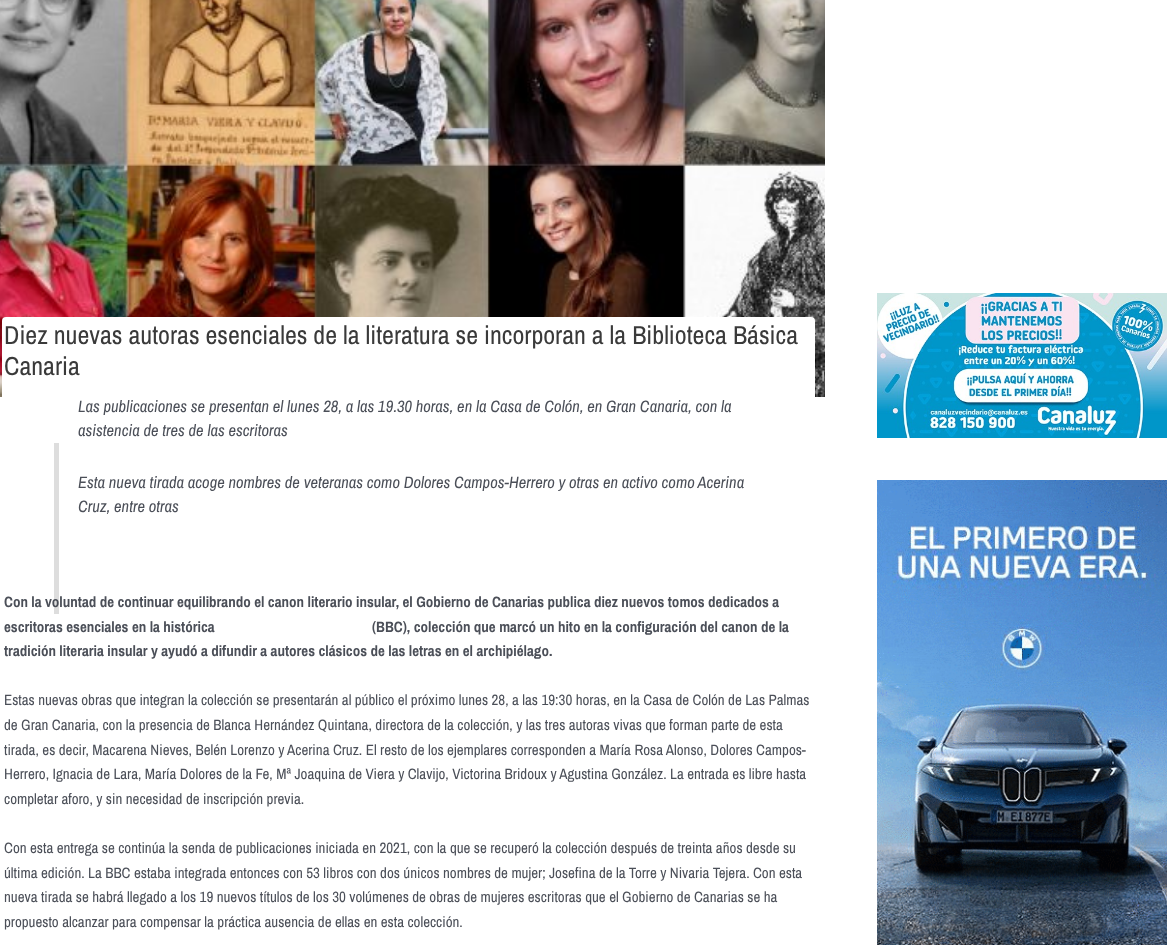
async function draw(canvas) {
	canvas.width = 1167;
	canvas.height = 945;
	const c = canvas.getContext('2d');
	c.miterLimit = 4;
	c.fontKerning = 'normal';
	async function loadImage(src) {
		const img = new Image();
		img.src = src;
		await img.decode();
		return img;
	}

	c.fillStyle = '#fff';
	c.fillRect(0, 0, 1167, 945);
	c.drawImage(await loadImage('img1.png'), 0, 0, 825, 397);
	c.beginPath();
	c.roundRect(2, 317, 813, 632, 4);
	c.fill();
	c.font = '26px Archivo Narrow';
	c.fillStyle = '#3a3a3a';
	c.fillText('Diez nuevas autoras esenciales de la literatura se incorporan a la Biblioteca Básica', 4, 344);
	c.fillText('Canaria', 4, 375);
	c.fillStyle = '#ddd';
	c.fillRect(54, 443, 5, 171);
	c.font = 'italic 16.5px Archivo Narrow';
	c.fillStyle = '#4b4f58';
	for (const [text, x, y] of [
		['Las publicaciones se presentan el lunes 28, a las 19.30 horas, en la Casa de Colón, en Gran Canaria, con la', 78, 412],
		['asistencia de tres de las escritoras', 78, 436],
		['Esta nueva tirada acoge nombres de veteranas como Dolores Campos-Herrero y otras en activo como Acerina', 78, 488],
		['Cruz, entre otras', 78, 512],
	]) {
		c.fillText(text, x, y);
	}
	c.font = 'bold 15px Archivo Narrow';
	for (const [text, x, y] of [
		['Con la voluntad de continuar equilibrando el canon literario insular, el Gobierno de Canarias publica diez nuevos tomos dedicados a', 4, 607],
		['escritoras esenciales en la histórica', 4, 632],
		['(BBC), colección que marcó un hito en la configuración del canon de la', 372, 632],
		['tradición literaria insular y ayudó a difundir a autores clásicos de las letras en el archipiélago.', 4, 656],
	]) {
		c.fillText(text, x, y);
	}
	c.font = '15px Archivo Narrow';
	for (const [text, x, y] of [
		['Estas nuevas obras que integran la colección se presentarán al público el próximo lunes 28, a las 19:30 horas, en la Casa de Colón de Las Palmas', 4, 705],
		['de Gran Canaria, con la presencia de Blanca Hernández Quintana, directora de la colección, y las tres autoras vivas que forman parte de esta', 4, 730],
		['tirada, es decir, Macarena Nieves, Belén Lorenzo y Acerina Cruz. El resto de los ejemplares corresponden a María Rosa Alonso, Dolores Campos-', 4, 755],
		['Herrero, Ignacia de Lara, María Dolores de la Fe, Mª Joaquina de Viera y Clavijo, Victorina Bridoux y Agustina González. La entrada es libre hasta', 4, 779],
		['completar aforo, y sin necesidad de inscripción previa.', 4, 804],
		['Con esta entrega se continúa la senda de publicaciones iniciada en 2021, con la que se recuperó la colección después de treinta años desde su', 4, 853],
		['última edición. La BBC estaba integrada entonces con 53 libros con dos únicos nombres de mujer; Josefina de la Torre y Nivaria Tejera. Con esta', 4, 878],
		['nueva tirada se habrá llegado a los 19 nuevos títulos de los 30 volúmenes de obras de mujeres escritoras que el Gobierno de Canarias se ha', 4, 902],
		['propuesto alcanzar para compensar la práctica ausencia de ellas en esta colección.', 4, 927],
	]) {
		c.fillText(text, x, y);
	}
	c.drawImage(await loadImage('img2.png'), 877, 293, 290, 145);
	c.drawImage(await loadImage('img3.png'), 877, 480, 290, 465);
}

draw(document.querySelector('canvas'));
